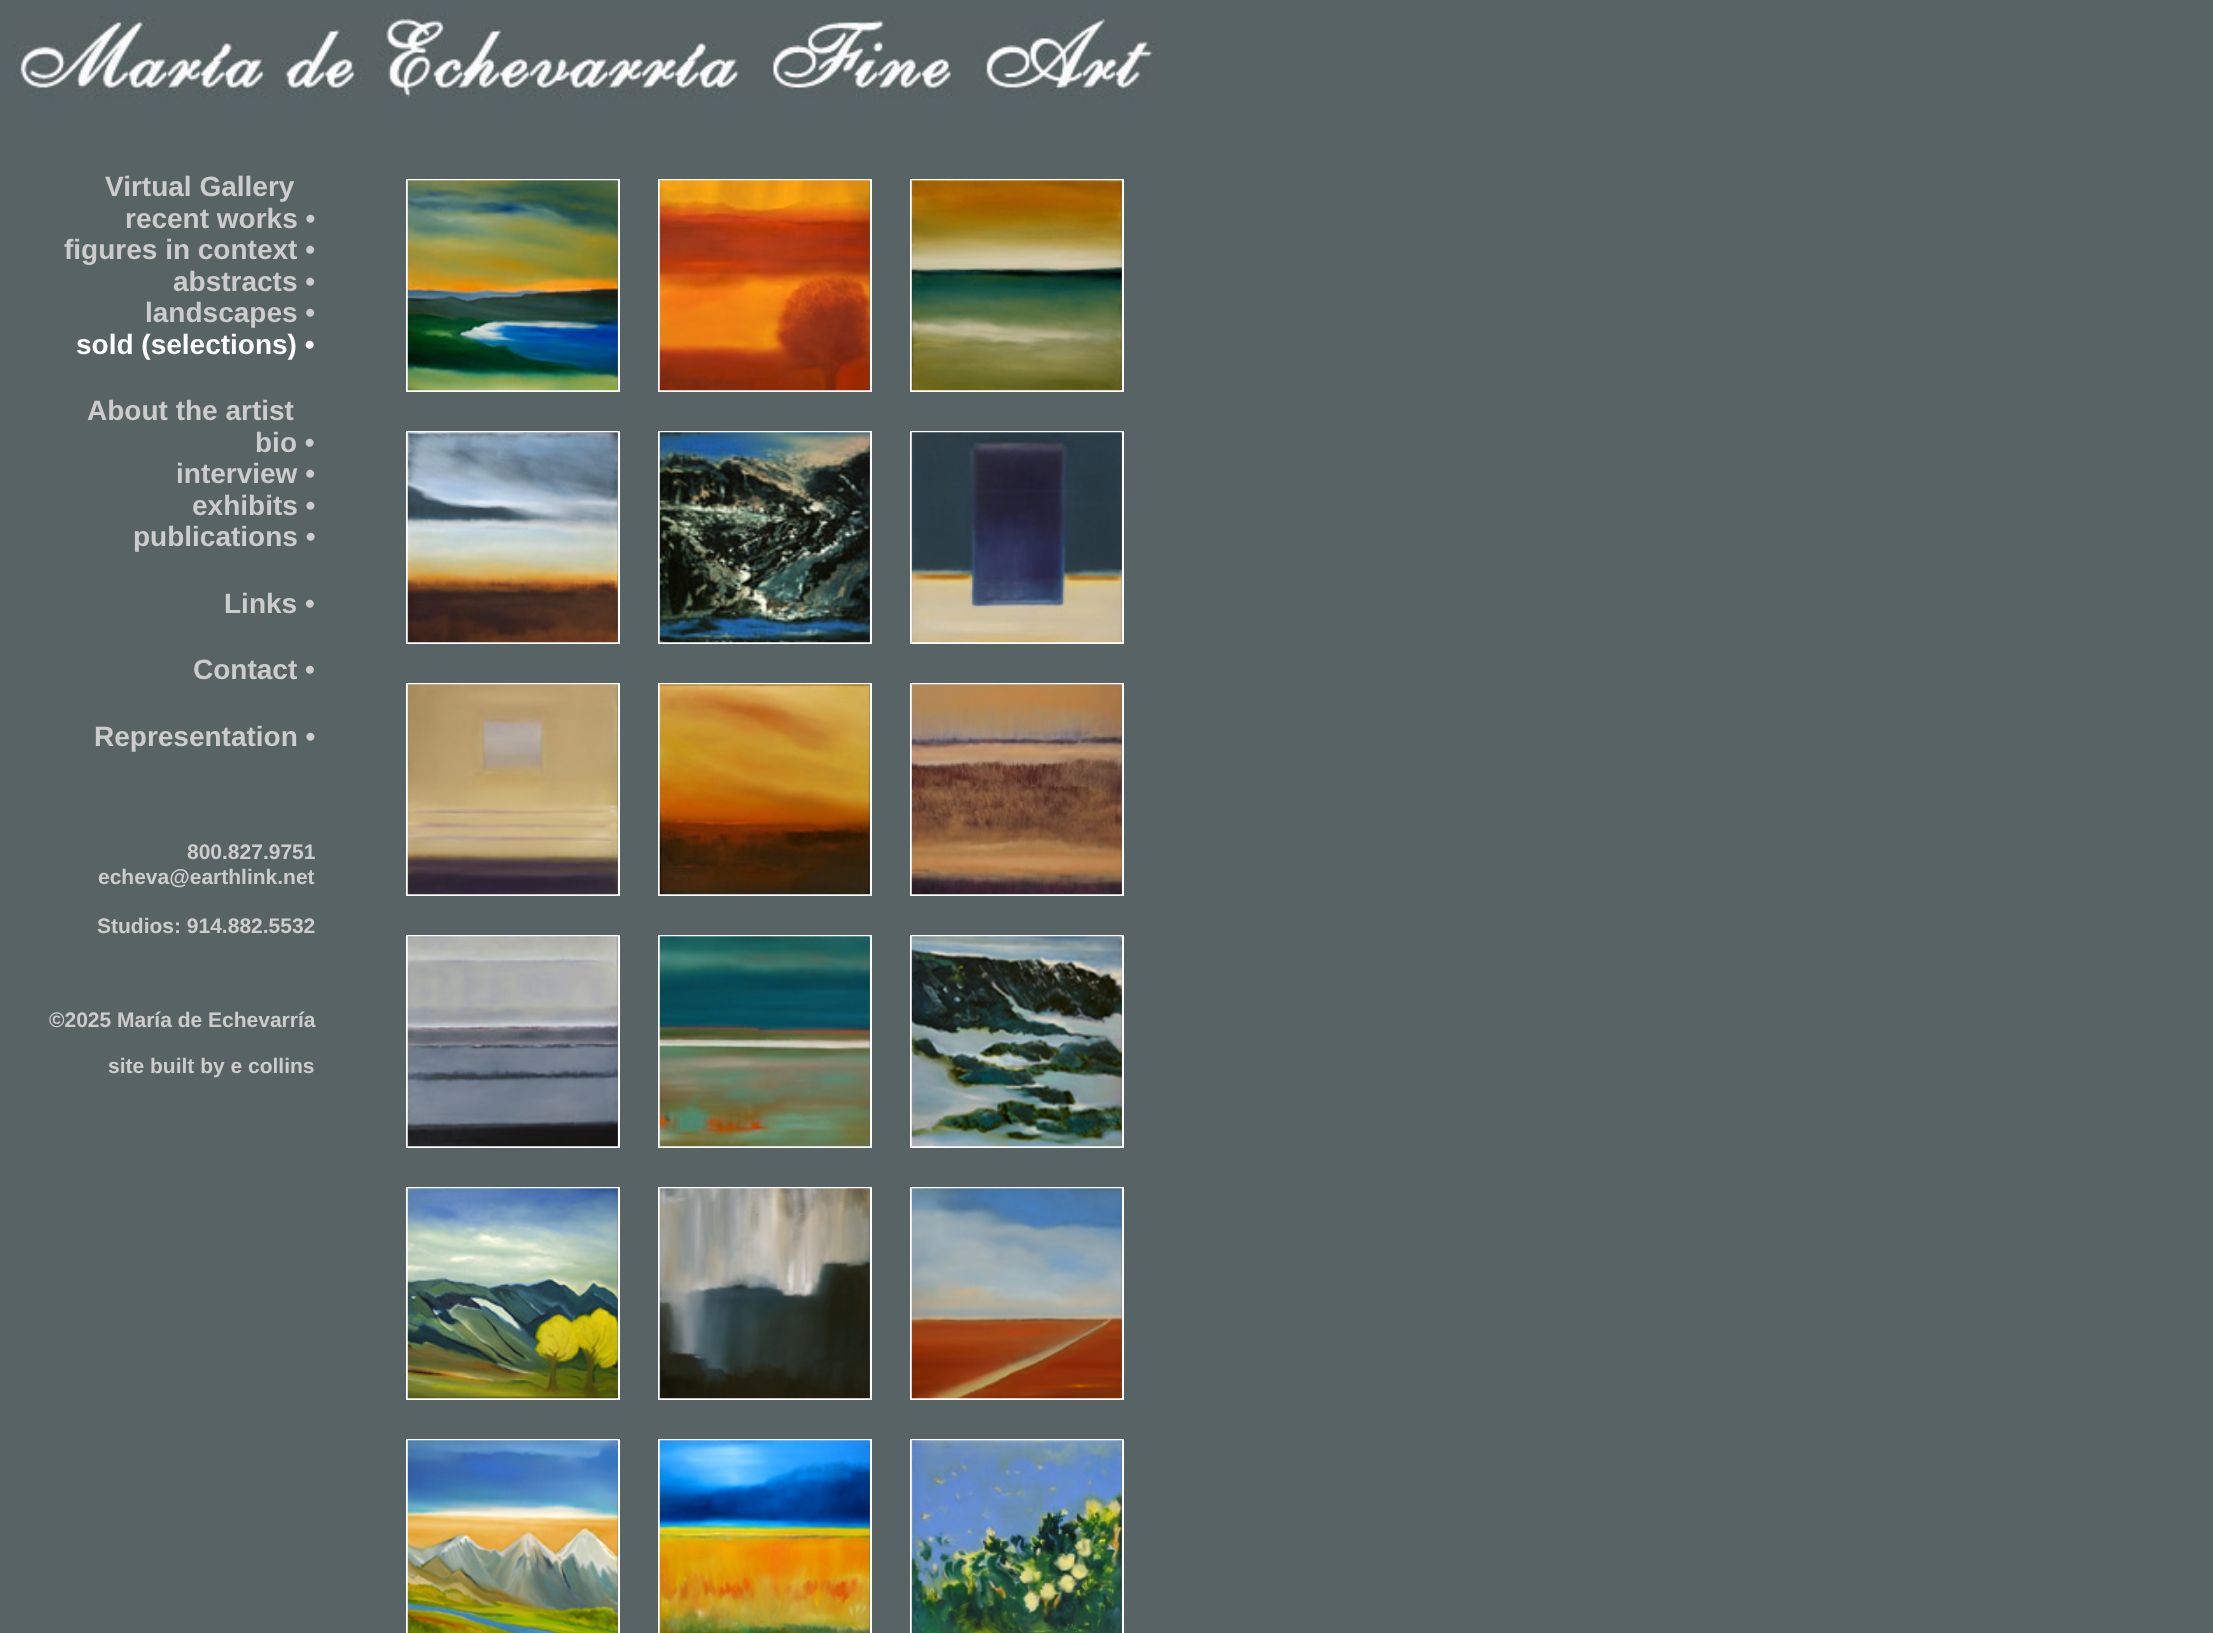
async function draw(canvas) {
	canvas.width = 2213;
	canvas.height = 1633;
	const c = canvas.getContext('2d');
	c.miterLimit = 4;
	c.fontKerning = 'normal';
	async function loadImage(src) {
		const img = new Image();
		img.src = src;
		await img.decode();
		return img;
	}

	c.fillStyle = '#586365';
	c.fillRect(0, 0, 2213, 1633);
	c.drawImage(await loadImage('img1.png'), 14, 14, 1146, 84);
	c.font = 'bold 28px Liberation Sans';
	c.fillStyle = '#ccc';
	for (const [text, x, y] of [
		['Virtual Gallery', 105, 196],
		['recent works •', 125, 228],
		['figures in context •', 64, 259],
		['abstracts •', 173, 291],
		['landscapes •', 145, 322],
	]) {
		c.fillText(text, x, y);
	}
	c.fillStyle = '#fcfcfc';
	c.fillText('sold (selections) •', 76, 354);
	c.fillStyle = '#ccc';
	for (const [text, x, y] of [
		['About the artist', 87, 420],
		['bio •', 255, 452],
		['interview •', 176, 483],
		['exhibits •', 192, 515],
		['publications •', 133, 546],
		['Links •', 224, 613],
		['Contact •', 193, 679],
		['Representation •', 94, 746],
	]) {
		c.fillText(text, x, y);
	}
	c.font = 'bold 21px Liberation Sans';
	for (const [text, x, y] of [
		['800.827.9751', 187, 859],
		['echeva@earthlink.net', 98, 884],
		['Studios: 914.882.5532', 97, 933],
		['©2025 María de Echevarría', 49, 1027],
		['site built by e collins', 108, 1073],
	]) {
		c.fillText(text, x, y);
	}
	c.strokeStyle = '#fff';
	c.lineWidth = 2;
	c.strokeRect(407, 180, 212, 211);
	c.drawImage(await loadImage('img2.png'), 407, 180, 211, 211);
	c.strokeRect(659, 180, 212, 211);
	c.drawImage(await loadImage('img3.png'), 659, 180, 211, 211);
	c.strokeRect(911, 180, 212, 211);
	c.drawImage(await loadImage('img4.png'), 911, 180, 211, 211);
	c.strokeRect(407, 432, 212, 211);
	c.drawImage(await loadImage('img5.png'), 407, 432, 211, 211);
	c.strokeRect(659, 432, 212, 211);
	c.drawImage(await loadImage('img6.png'), 659, 432, 211, 211);
	c.strokeRect(911, 432, 212, 211);
	c.drawImage(await loadImage('img7.png'), 911, 432, 211, 211);
	c.strokeRect(407, 684, 212, 211);
	c.drawImage(await loadImage('img8.png'), 407, 684, 211, 211);
	c.strokeRect(659, 684, 212, 211);
	c.drawImage(await loadImage('img9.png'), 659, 684, 211, 211);
	c.strokeRect(911, 684, 212, 211);
	c.drawImage(await loadImage('img10.png'), 911, 684, 211, 211);
	c.strokeRect(407, 936, 212, 211);
	c.drawImage(await loadImage('img11.png'), 407, 936, 211, 211);
	c.strokeRect(659, 936, 212, 211);
	c.drawImage(await loadImage('img12.png'), 659, 936, 211, 211);
	c.strokeRect(911, 936, 212, 211);
	c.drawImage(await loadImage('img13.png'), 911, 936, 211, 211);
	c.strokeRect(407, 1188, 212, 211);
	c.drawImage(await loadImage('img14.png'), 407, 1188, 211, 211);
	c.strokeRect(659, 1188, 212, 211);
	c.drawImage(await loadImage('img15.png'), 659, 1188, 211, 211);
	c.strokeRect(911, 1188, 212, 211);
	c.drawImage(await loadImage('img16.png'), 911, 1188, 211, 211);
	c.strokeRect(407, 1440, 212, 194);
	c.drawImage(await loadImage('img17.png'), 407, 1440, 211, 193);
	c.strokeRect(659, 1440, 212, 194);
	c.drawImage(await loadImage('img18.png'), 659, 1440, 211, 193);
	c.strokeRect(911, 1440, 212, 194);
	c.drawImage(await loadImage('img19.png'), 911, 1440, 211, 193);
}

draw(document.querySelector('canvas'));
